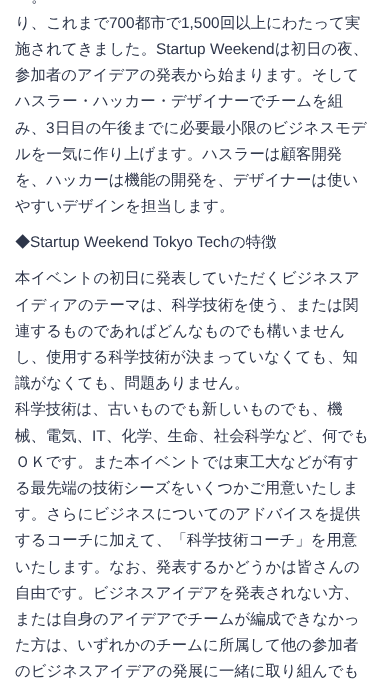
async function draw(canvas) {
	canvas.width = 385;
	canvas.height = 689;
	const c = canvas.getContext('2d');
	c.miterLimit = 4;
	c.fontKerning = 'normal';

	c.fillStyle = '#fff';
	c.fillRect(0, 0, 385, 689);
	c.font = '500 15.4px WenQuanYi Zen Hei';
	c.fillStyle = '#2d3549';
	c.fillText('。', 31, 2);
	c.fillText('り、これまで', 15, 28);
	c.font = '15.4px Liberation Sans';
	c.fillText('700', 109, 28);
	c.font = '500 15.4px WenQuanYi Zen Hei';
	c.fillText('都市で', 135, 28);
	c.font = '15.4px Liberation Sans';
	c.fillText('1,500', 181, 28);
	c.font = '500 15.4px WenQuanYi Zen Hei';
	c.fillText('回以上にわたって実', 220, 28);
	c.fillText('施されてきました。', 15, 54);
	c.font = '15.4px Liberation Sans';
	c.fillText('Startup Weekend', 156, 54);
	c.font = '500 15.4px WenQuanYi Zen Hei';
	for (const [text, x, y] of [
		['は初日の夜、', 275, 54],
		['参加者のアイデアの発表から始まります。そして', 15, 80],
		['ハスラー・ハッカー・デザイナーでチームを組', 15, 106],
		['み、', 15, 133],
	]) {
		c.fillText(text, x, y);
	}
	c.font = '15.4px Liberation Sans';
	c.fillText('3', 46, 133);
	c.font = '500 15.4px WenQuanYi Zen Hei';
	for (const [text, x, y] of [
		['日目の午後までに必要最小限のビジネスモデ', 55, 133],
		['ルを一気に作り上げます。ハスラーは顧客開発', 15, 159],
		['を、ハッカーは機能の開発を、デザイナーは使い', 15, 185],
		['やすいデザインを担当します。', 15, 211],
		['◆', 15, 247],
	]) {
		c.fillText(text, x, y);
	}
	c.font = '15.4px Liberation Sans';
	c.fillText('Startup Weekend Tokyo Tech', 30, 247);
	c.font = '500 15.4px WenQuanYi Zen Hei';
	for (const [text, x, y] of [
		['の特徴', 230, 247],
		['本イベントの初日に発表していただくビジネスア', 15, 283],
		['イディアのテーマは、科学技術を使う、または関', 15, 310],
		['連するものであればどんなものでも構いません', 15, 336],
		['し、使用する科学技術が決まっていなくても、知', 15, 362],
		['識がなくても、問題ありません。', 15, 388],
		['科学技術は、古いものでも新しいものでも、機', 15, 414],
		['械、電気、', 15, 441],
	]) {
		c.fillText(text, x, y);
	}
	c.font = '15.4px Liberation Sans';
	c.fillText('IT', 92, 441);
	c.font = '500 15.4px WenQuanYi Zen Hei';
	for (const [text, x, y] of [
		['、化学、生命、社会科学など、何でも', 106, 441],
		['ＯＫです。また本イベントでは東工大などが有す', 15, 467],
		['る最先端の技術シーズをいくつかご用意いたしま', 15, 493],
		['す。さらにビジネスについてのアドバイスを提供', 15, 519],
		['するコーチに加えて、「科学技術コーチ」を用意', 15, 545],
		['いたします。なお、発表するかどうかは皆さんの', 15, 572],
		['自由です。ビジネスアイデアを発表されない方、', 15, 598],
		['または自身のアイデアでチームが編成できなかっ', 15, 624],
		['た方は、いずれかのチームに所属して他の参加者', 15, 650],
		['のビジネスアイデアの発展に一緒に取り組んでも', 15, 676],
	]) {
		c.fillText(text, x, y);
	}
}

draw(document.querySelector('canvas'));
